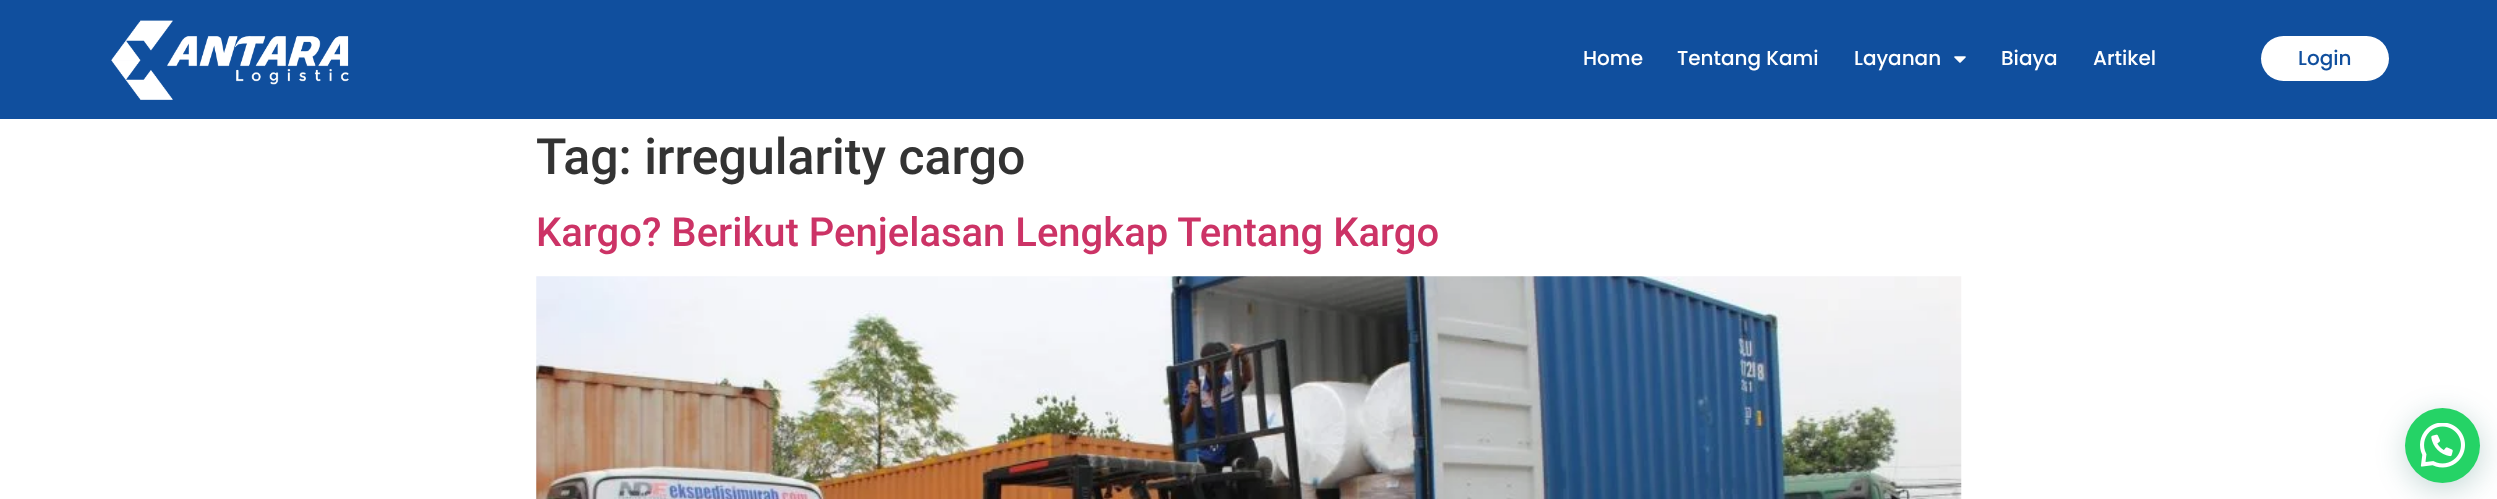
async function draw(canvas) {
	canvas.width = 2497;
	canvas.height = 499;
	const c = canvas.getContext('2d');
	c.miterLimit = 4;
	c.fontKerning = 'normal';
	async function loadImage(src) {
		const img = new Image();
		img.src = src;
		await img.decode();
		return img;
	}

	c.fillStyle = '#fff';
	c.fillRect(0, 0, 2497, 499);
	c.fillStyle = '#104f9e';
	c.fillRect(0, 0, 2497, 119);
	c.drawImage(await loadImage('img1.png'), 111, 20, 238, 80);
	c.font = '500 20px Poppins';
	c.fillStyle = '#fff';
	for (const [text, x, y] of [
		['Home', 1583, 65],
		['Tentang Kami', 1677, 65],
		['Layanan', 1854, 65],
	]) {
		c.fillText(text, x, y);
	}
	c.drawImage(await loadImage('img2.png'), 1954, 56, 12, 7);
	c.fillText('Biaya', 2001, 65);
	c.fillText('Artikel', 2093, 65);
	c.beginPath();
	c.roundRect(2261, 36, 128, 45, 22.5);
	c.fill();
	c.fillStyle = '#104f9e';
	c.fillText('Login', 2298, 65);
	c.font = '500 50px Roboto';
	c.fillStyle = '#333';
	c.fillText('Tag: irregularity cargo', 536, 174);
	c.font = '500 40px Roboto';
	c.fillStyle = '#c36';
	c.fillText('Kargo? Berikut Penjelasan Lengkap Tentang Kargo', 536, 246);
	c.drawImage(await loadImage('img3.png'), 536, 276, 1426, 223);
	c.fillStyle = '#075e543d';
	c.filter = 'blur(15px)';
	c.beginPath();
	c.roundRect(2406, 415, 75, 75, 37.5);
	c.fill();
	c.filter = 'none';
	c.fillStyle = '#25d366';
	c.beginPath();
	c.arc(2442.5, 445.5, 37.5, 0, 2 * Math.PI);
	c.fill();
	c.drawImage(await loadImage('img4.png'), 2420, 423, 45, 45);
}

draw(document.querySelector('canvas'));
